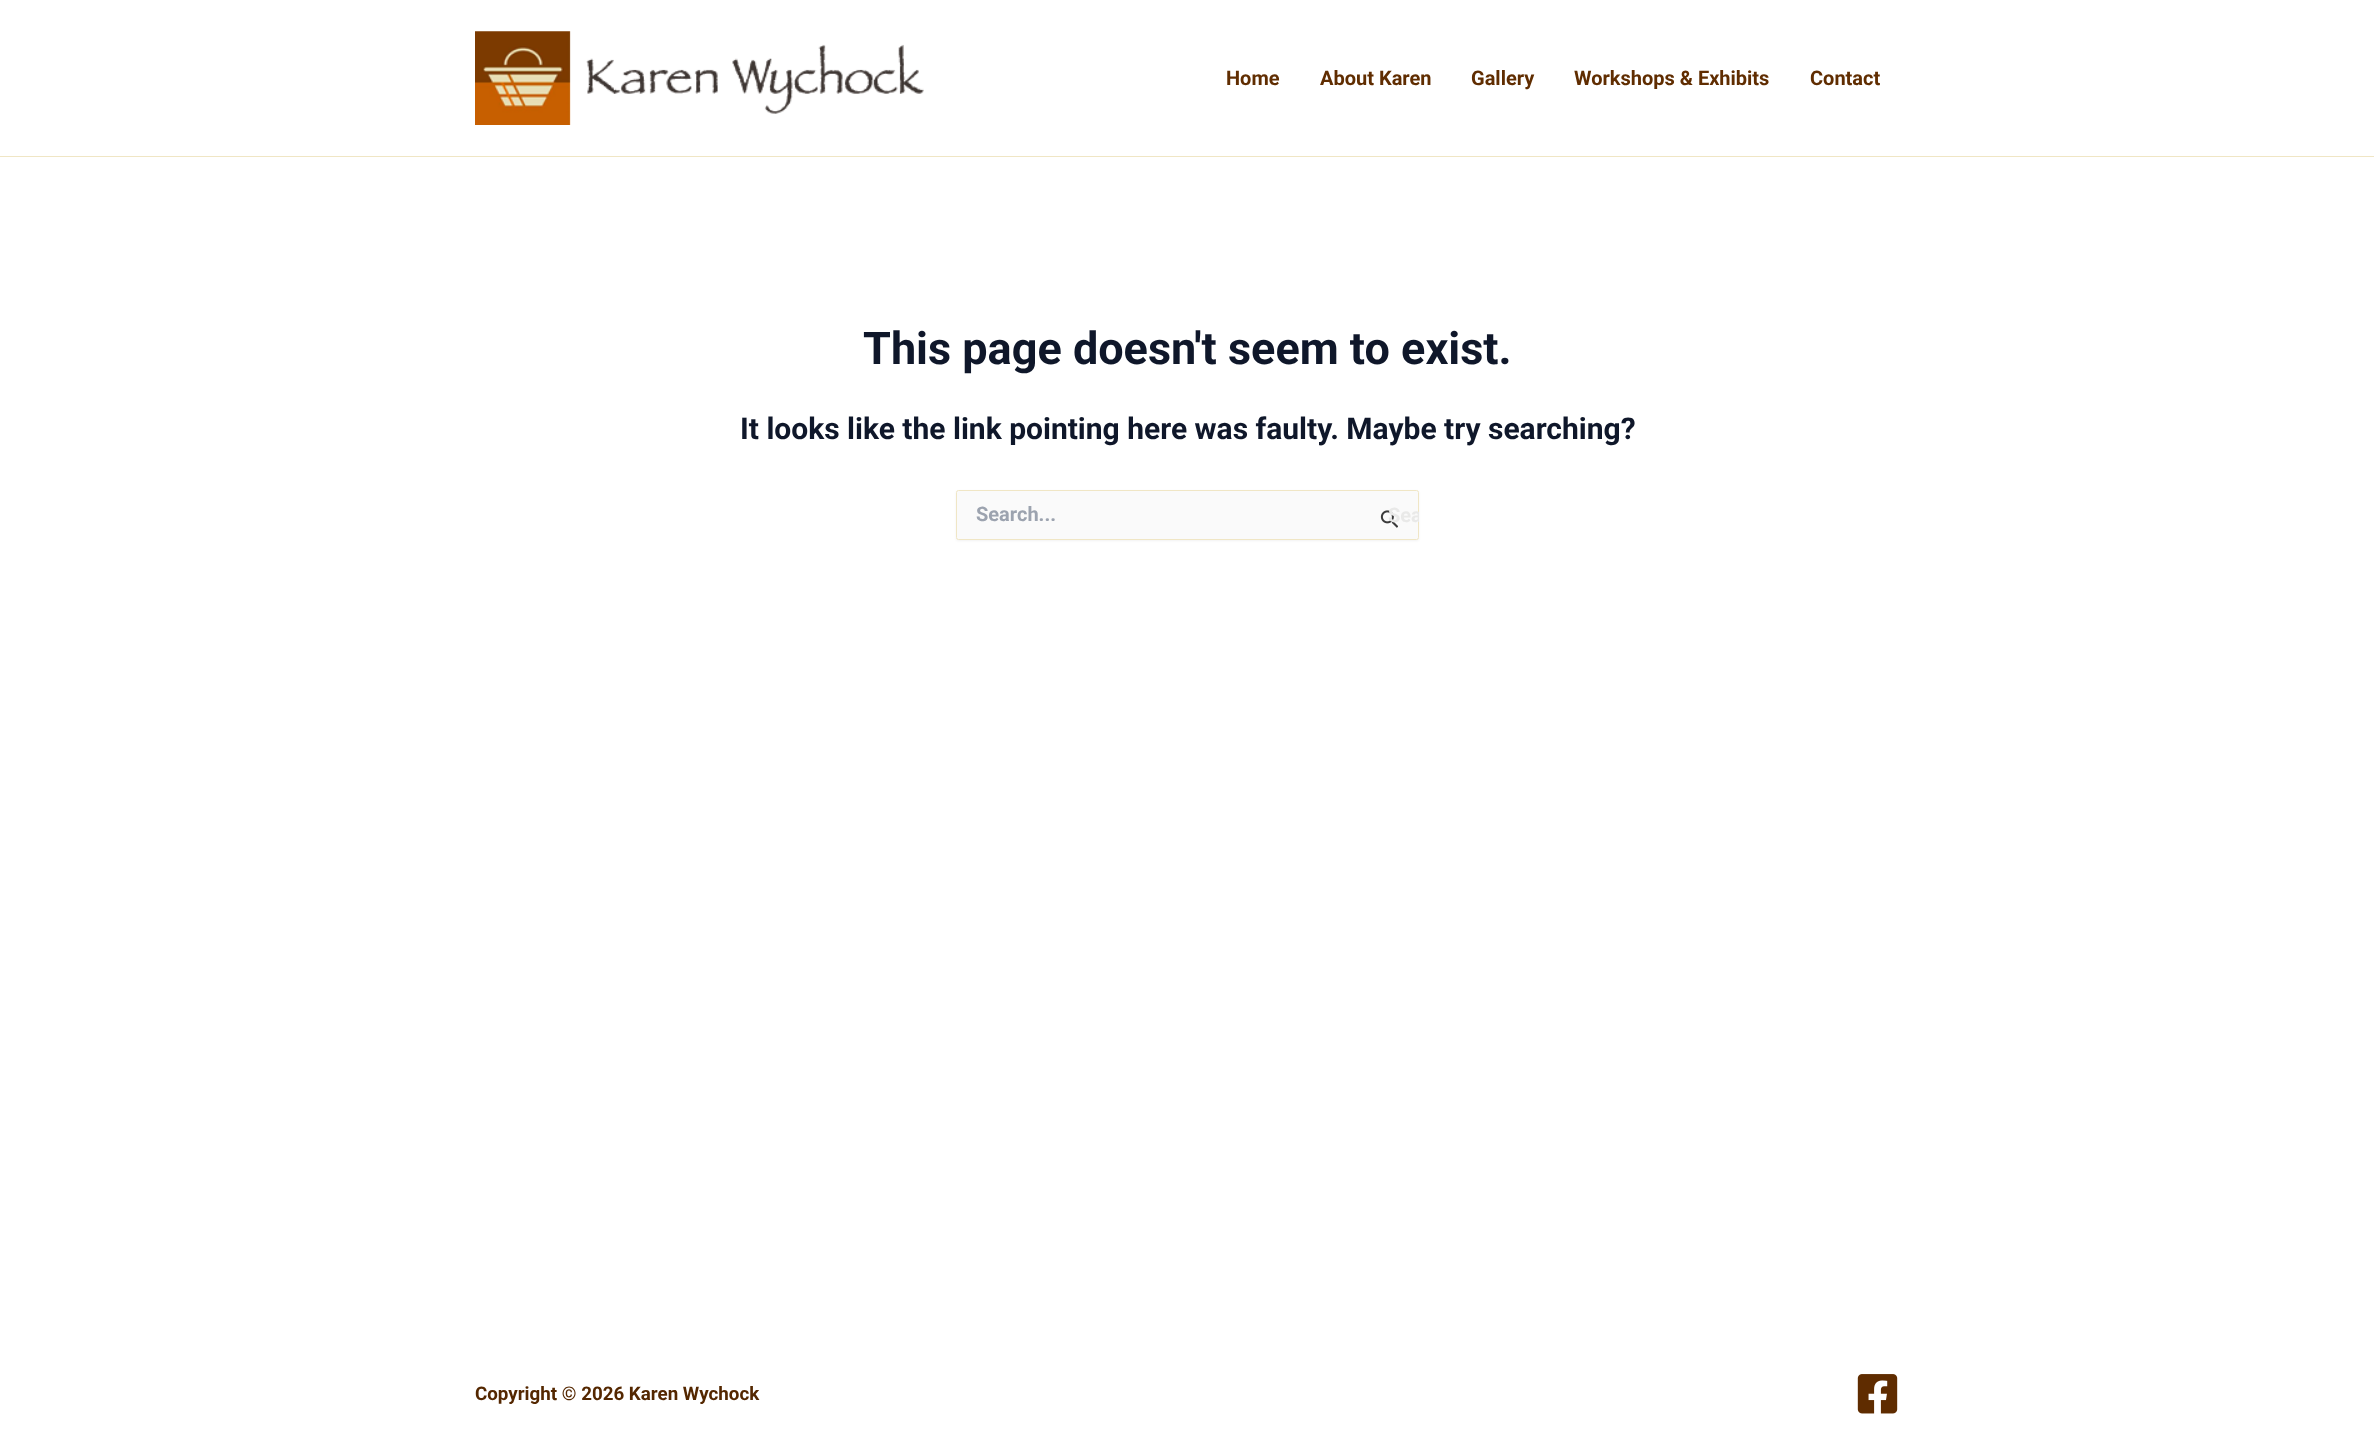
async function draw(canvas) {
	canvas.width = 2374;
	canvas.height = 1450;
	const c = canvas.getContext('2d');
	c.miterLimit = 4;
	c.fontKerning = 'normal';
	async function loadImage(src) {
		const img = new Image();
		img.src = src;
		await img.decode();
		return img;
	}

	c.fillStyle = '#fff';
	c.fillRect(0, 0, 2374, 1450);
	c.fillStyle = '#f0e6c5';
	c.fillRect(0, 156, 2374, 1);
	c.drawImage(await loadImage('img1.png'), 475, 31, 449, 94);
	c.font = 'bold 20px Roboto';
	c.fillStyle = '#602d01';
	for (const [text, x, y] of [
		['Home', 1226, 85],
		['About Karen', 1320, 85],
		['Gallery', 1471, 85],
		['Workshops & Exhibits', 1574, 85],
		['Contact', 1810, 85],
	]) {
		c.fillText(text, x, y);
	}
	c.font = 'bold 45px Roboto';
	c.fillStyle = '#0f172a';
	c.fillText('This page doesn\'t seem to exist.', 863, 364);
	c.font = 'bold 30px Roboto';
	c.fillText('It looks like the link pointing here was faulty. Maybe try searching?', 740, 439);
	c.fillStyle = '#0000000d';
	c.filter = 'blur(1px)';
	c.beginPath();
	c.roundRect(956, 491, 463, 50, 2.5);
	c.fill();
	c.filter = 'none';
	c.fillStyle = '#fafafa';
	c.beginPath();
	c.roundRect(956.5, 490.5, 462, 49, 2);
	c.fill();
	c.strokeStyle = '#f0e6c5';
	c.stroke();
	c.font = 'bold 20px Roboto';
	c.fillStyle = '#9ca3af';
	c.fillText('Search...', 976, 521);
	c.drawImage(await loadImage('img2.png'), 1380, 510, 18, 18);
	c.save();
	c.beginPath();
	c.roundRect(1363, 490, 56, 53, 2.5);
	c.clip();
	c.fillStyle = '#e9e9e8';
	c.fillText('Sea', 1388, 522);
	c.restore();
	c.font = 'bold 18.75px Roboto';
	c.fillStyle = '#542700';
	c.fillText('Copyright © 2026 Karen Wychock', 475, 1400);
	c.drawImage(await loadImage('img3.png'), 1857, 1374, 41, 40);
}

draw(document.querySelector('canvas'));
